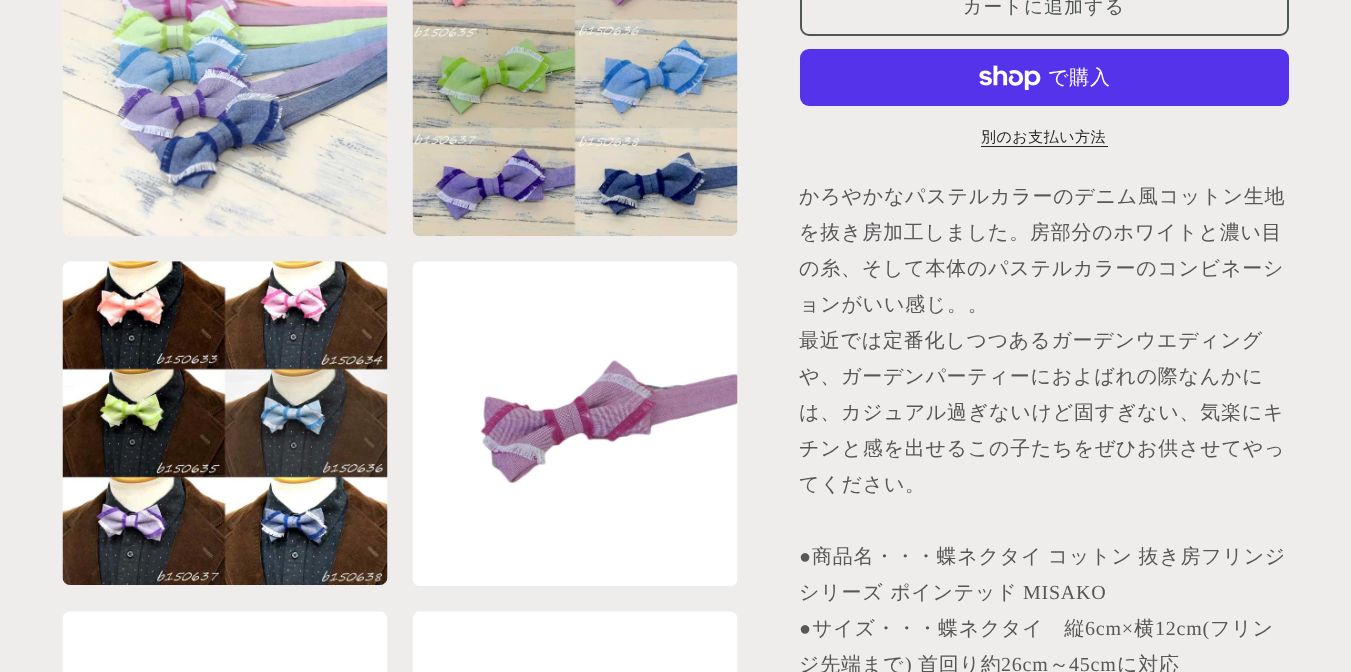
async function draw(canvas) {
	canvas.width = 1351;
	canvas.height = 672;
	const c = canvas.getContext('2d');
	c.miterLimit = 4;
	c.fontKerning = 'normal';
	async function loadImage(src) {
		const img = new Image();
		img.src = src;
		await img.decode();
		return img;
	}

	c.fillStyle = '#efecec';
	c.fillRect(0, 0, 1351, 672);
	c.drawImage(await loadImage('img1.png'), 62, 0, 326, 237);
	c.drawImage(await loadImage('img2.png'), 412, 0, 326, 237);
	c.drawImage(await loadImage('img3.png'), 62, 261, 326, 324);
	c.drawImage(await loadImage('img4.png'), 412, 261, 326, 325);
	c.drawImage(await loadImage('img5.png'), 62, 611, 326, 61);
	c.drawImage(await loadImage('img5.png'), 412, 611, 326, 61);
	c.beginPath();
	c.roundRect(801, -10, 487, 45, 8);
	c.strokeStyle = '#505655';
	c.lineWidth = 2;
	c.stroke();
	c.letterSpacing = '1.25px';
	c.font = '500 18.75px WenQuanYi Zen Hei';
	c.fillStyle = '#505655';
	c.fillText('カートに追加する', 963, 13);
	c.fillStyle = '#5433eb';
	c.beginPath();
	c.roundRect(800, 49, 489, 57, 9);
	c.fill();
	c.drawImage(await loadImage('img6.png'), 979, 65, 62, 25);
	c.letterSpacing = '0.75px';
	c.font = '500 20px WenQuanYi Zen Hei';
	c.fillStyle = '#fff';
	c.fillText('で購入', 1048, 84);
	c.letterSpacing = '0.5px';
	c.font = '500 15px WenQuanYi Zen Hei';
	c.fillStyle = '#252525';
	c.fillText('別のお支払い方法', 981, 142);
	c.fillRect(981, 146, 127, 1);
	c.letterSpacing = '0.75px';
	c.font = '500 20px WenQuanYi Zen Hei';
	c.fillStyle = '#585757';
	for (const [text, x, y] of [
		['かろやかなパステルカラーのデニム風コットン生地', 799, 203],
		['を抜き房加工しました。房部分のホワイトと濃い目', 799, 239],
		['の糸、そして本体のパステルカラーのコンビネーシ', 799, 275],
		['ョンがいい感じ。。', 799, 311],
		['最近では定番化しつつあるガーデンウエディング', 799, 347],
		['や、ガーデンパーティーにおよばれの際なんかに', 799, 383],
		['は、カジュアル過ぎないけど固すぎない、気楽にキ', 799, 419],
		['チンと感を出せるこの子たちをぜひお供させてやっ', 799, 455],
		['てください。', 799, 491],
	]) {
		c.fillText(text, x, y);
	}
	c.font = '20px Liberation Serif';
	c.fillText('●', 799, 563);
	c.wordSpacing = '-1px';
	c.font = '500 20px WenQuanYi Zen Hei';
	c.fillText('商品名・・・蝶ネクタイ コットン 抜き房フリンジ', 812, 563);
	c.wordSpacing = '0px';
	c.fillText('シリーズ ポインテッド', 799, 599);
	c.font = '20px Liberation Serif';
	c.fillText('MISAKO', 1023, 599);
	c.fillText('●', 799, 635);
	c.font = '500 20px WenQuanYi Zen Hei';
	c.fillText('サイズ・・・蝶ネクタイ　縦', 812, 635);
	c.font = '20px Liberation Serif';
	c.fillText('6cm×', 1085, 635);
	c.font = '500 20px WenQuanYi Zen Hei';
	c.fillText('横', 1134, 635);
	c.font = '20px Liberation Serif';
	c.fillText('12cm(', 1155, 635);
	c.font = '500 20px WenQuanYi Zen Hei';
	c.fillText('フリン', 1210, 635);
	c.fillText('ジ先端まで', 799, 671);
	c.font = '20px Liberation Serif';
	c.fillText(')', 905, 671);
	c.font = '500 20px WenQuanYi Zen Hei';
	c.fillText('首回り約', 918, 671);
	c.font = '20px Liberation Serif';
	c.fillText('26cm', 1001, 671);
	c.font = '500 20px WenQuanYi Zen Hei';
	c.fillText('～', 1049, 671);
	c.font = '20px Liberation Serif';
	c.fillText('45cm', 1069, 671);
	c.font = '500 20px WenQuanYi Zen Hei';
	c.fillText('に対応', 1117, 671);
}

draw(document.querySelector('canvas'));
